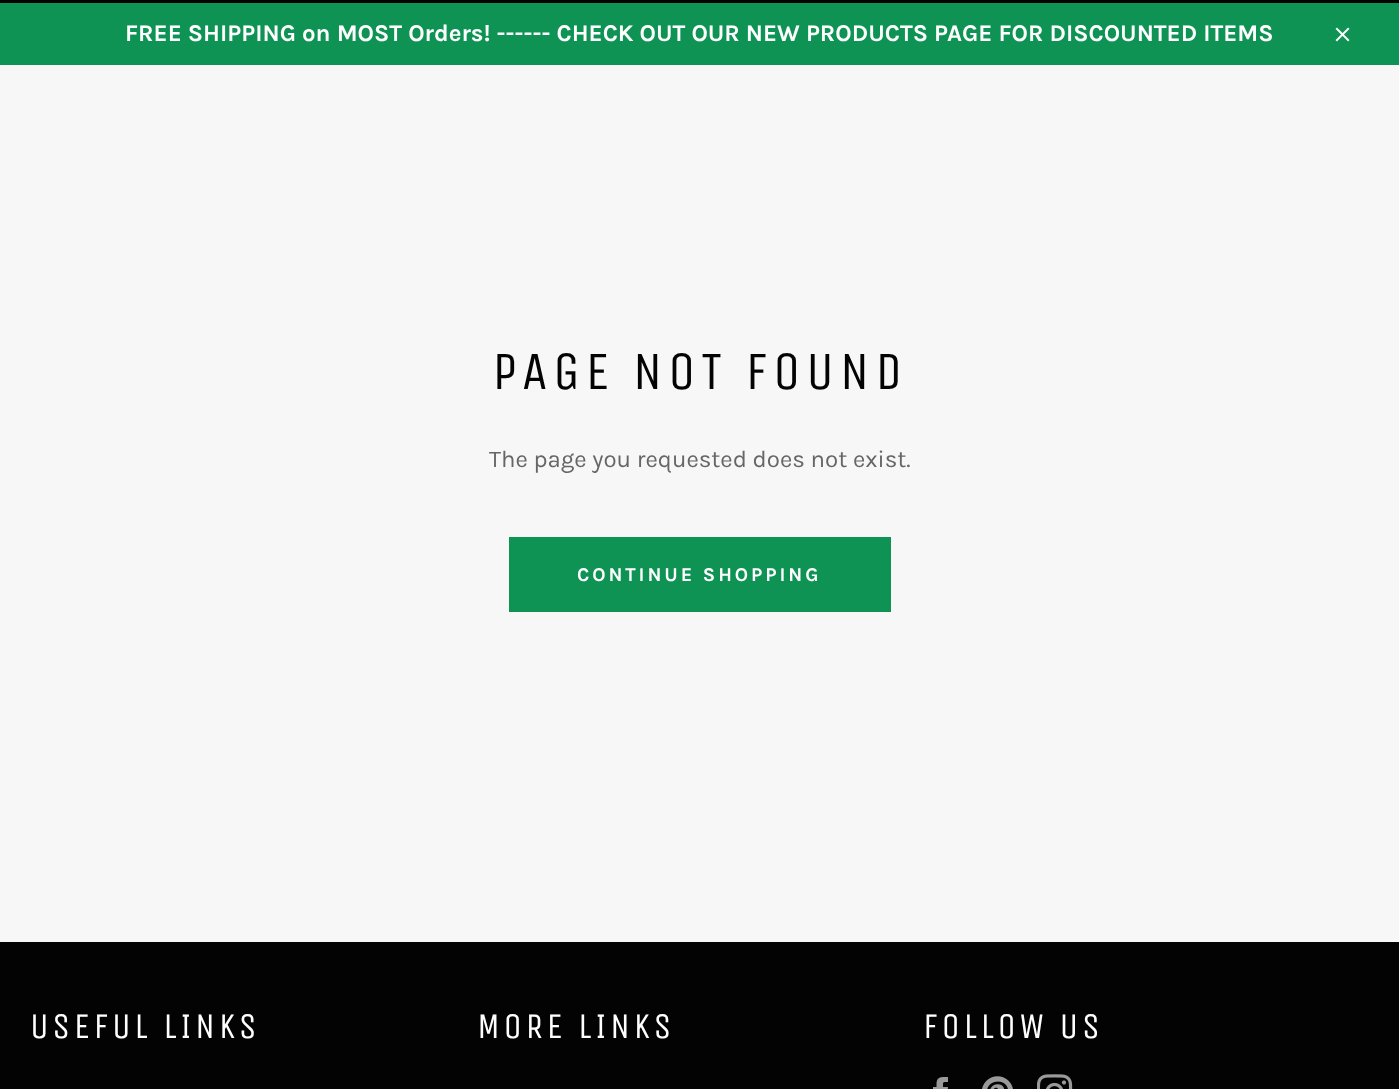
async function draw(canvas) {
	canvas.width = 1399;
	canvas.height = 1089;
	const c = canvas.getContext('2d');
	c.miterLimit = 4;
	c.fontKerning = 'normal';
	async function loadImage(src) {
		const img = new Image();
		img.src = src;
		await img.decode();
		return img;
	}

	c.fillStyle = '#f7f7f7';
	c.fillRect(0, 0, 1399, 1089);
	c.fillStyle = '#030303';
	c.fillRect(0, 0, 1399, 3);
	c.fillStyle = '#0e9354';
	c.fillRect(0, 3, 1399, 62);
	c.font = 'bold 24px Karla';
	c.fillStyle = '#fff';
	c.fillText('FREE SHIPPING on MOST Orders! ------ CHECK OUT OUR NEW PRODUCTS PAGE FOR DISCOUNTED ITEMS', 125, 41);
	c.drawImage(await loadImage('img1.png'), 1335, 27, 15, 15);
	c.letterSpacing = '5.4px';
	c.font = '54px Unica One';
	c.fillStyle = '#030303';
	c.fillText('PAGE NOT FOUND', 492, 389);
	c.letterSpacing = '0px';
	c.font = '24px Karla';
	c.fillStyle = '#666';
	c.fillText('The page you requested does not exist.', 489, 467);
	c.fillStyle = '#0e9354';
	c.fillRect(509, 537, 382, 75);
	c.letterSpacing = '2.9px';
	c.font = 'bold 19.5px Karla';
	c.fillStyle = '#fff';
	c.fillText('CONTINUE SHOPPING', 577, 581);
	c.fillStyle = '#030303';
	c.fillRect(0, 942, 1399, 147);
	c.letterSpacing = '3.6px';
	c.font = '36px Unica One';
	c.fillStyle = '#fff';
	for (const [text, x, y] of [
		['USEFUL LINKS', 30, 1038],
		['MORE LINKS', 477, 1038],
		['FOLLOW US', 923, 1038],
	]) {
		c.fillText(text, x, y);
	}
	c.drawImage(await loadImage('img2.png'), 933, 1077, 15, 12);
	c.drawImage(await loadImage('img3.png'), 982, 1076, 31, 13);
	c.drawImage(await loadImage('img4.png'), 1037, 1074, 36, 15);
}

draw(document.querySelector('canvas'));
